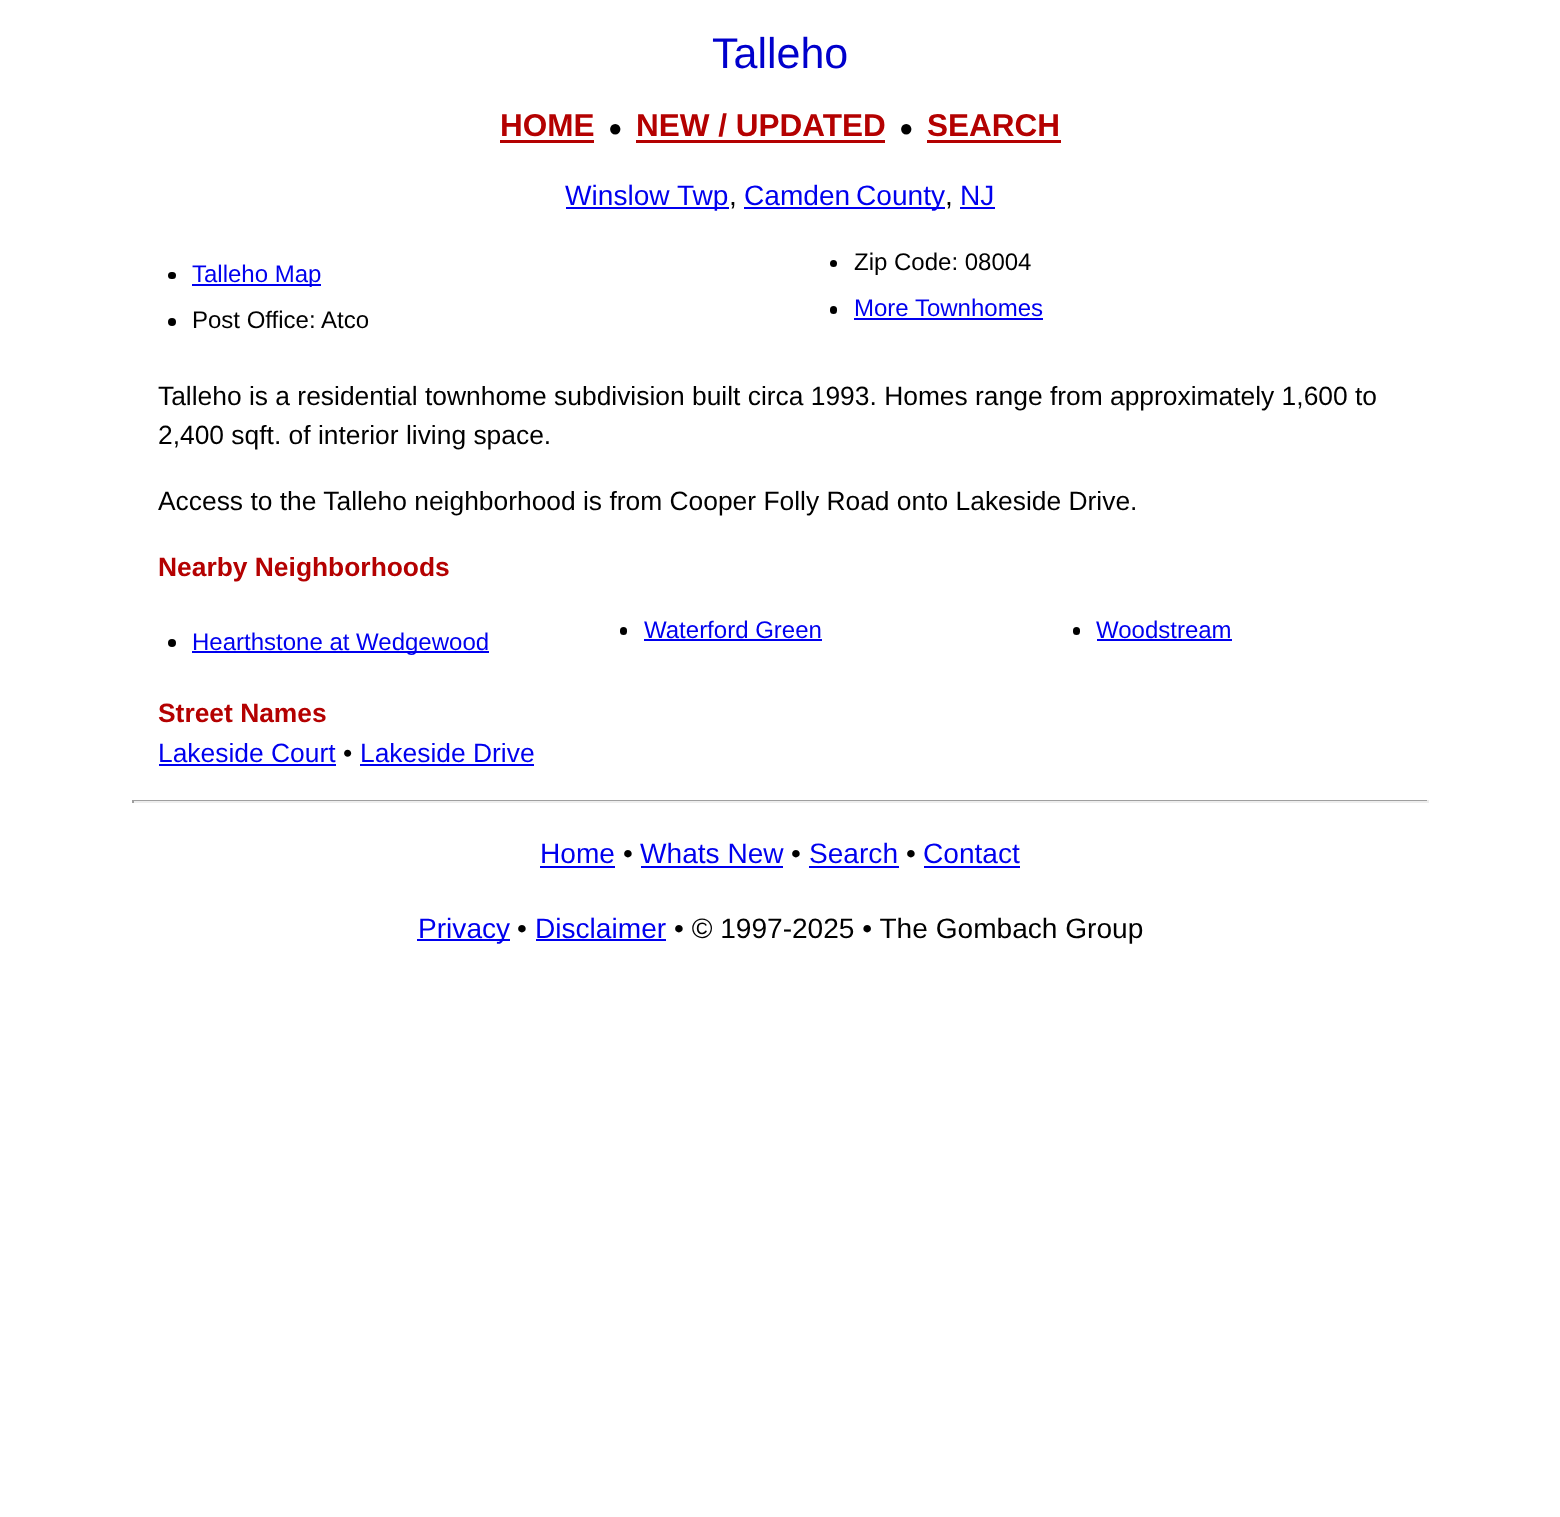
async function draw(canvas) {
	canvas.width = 1560;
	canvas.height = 1517;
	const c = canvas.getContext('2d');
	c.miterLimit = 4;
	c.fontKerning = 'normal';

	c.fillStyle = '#fff';
	c.fillRect(0, 0, 1560, 1517);
	c.font = '43px Liberation Sans';
	c.fillStyle = '#00c';
	c.fillText('Talleho', 712, 68);
	c.font = 'bold 31.5px Liberation Sans';
	c.fillStyle = '#b40101';
	c.fillText('HOME', 500, 136);
	c.fillRect(500, 140, 94, 3);
	c.font = '24px Liberation Sans';
	c.fillStyle = '#000';
	c.fillText('●', 608, 136);
	c.font = 'bold 31.5px Liberation Sans';
	c.fillStyle = '#b40101';
	c.fillText('NEW / UPDATED', 636, 136);
	c.fillRect(636, 140, 249, 3);
	c.font = '24px Liberation Sans';
	c.fillStyle = '#000';
	c.fillText('●', 899, 136);
	c.font = 'bold 31.5px Liberation Sans';
	c.fillStyle = '#b40101';
	c.fillText('SEARCH', 927, 136);
	c.fillRect(927, 140, 134, 3);
	c.fillStyle = '#00e';
	c.fillRect(566, 207, 163, 2);
	c.font = '28.1px Liberation Sans';
	c.fillText('Winslow Twp', 565, 205);
	c.fillStyle = '#000';
	c.fillText(',', 729, 205);
	c.fillStyle = '#00e';
	c.fillRect(744, 207, 201, 2);
	c.wordSpacing = '-2px';
	c.fillText('Camden County', 744, 205);
	c.wordSpacing = '0px';
	c.fillStyle = '#000';
	c.fillText(',', 945, 205);
	c.fillStyle = '#00e';
	c.fillText('NJ', 960, 205);
	c.fillRect(960, 207, 35, 2);
	c.fillStyle = '#000';
	c.beginPath();
	c.roundRect(168, 272, 8, 7, 3.5);
	c.fill();
	c.fillStyle = '#00e';
	c.fillRect(192, 284, 129, 2);
	c.font = '24px Liberation Sans';
	c.fillText('Talleho Map', 192, 282);
	c.fillStyle = '#000';
	c.beginPath();
	c.arc(833.5, 263.5, 3.5, 0, 2 * Math.PI);
	c.fill();
	c.fillText('Zip Code: 08004', 854, 270);
	c.beginPath();
	c.roundRect(830, 306, 7, 8, 3.5);
	c.fill();
	c.fillStyle = '#00e';
	c.fillText('More Townhomes', 854, 316);
	c.fillRect(854, 318, 189, 2);
	c.fillStyle = '#000';
	c.beginPath();
	c.arc(172, 322, 4, 0, 2 * Math.PI);
	c.fill();
	c.fillText('Post Office: Atco', 192, 328);
	c.font = '26.4px Liberation Sans';
	for (const [text, x, y] of [
		['Talleho is a residential townhome subdivision built circa 1993. Homes range from approximately 1,600 to', 158, 405],
		['2,400 sqft. of interior living space.', 158, 444],
		['Access to the Talleho neighborhood is from Cooper Folly Road onto Lakeside Drive.', 158, 510],
	]) {
		c.fillText(text, x, y);
	}
	c.font = 'bold 26.4px Liberation Sans';
	c.fillStyle = '#b40101';
	c.fillText('Nearby Neighborhoods', 158, 576);
	c.fillStyle = '#000';
	c.beginPath();
	c.roundRect(620, 627, 7, 8, 3.5);
	c.fill();
	c.font = '24px Liberation Sans';
	c.fillStyle = '#00e';
	c.fillText('Waterford Green', 644, 638);
	c.fillRect(644, 639, 178, 2);
	c.fillStyle = '#000';
	c.beginPath();
	c.roundRect(1073, 627, 7, 8, 3.5);
	c.fill();
	c.fillStyle = '#00e';
	c.fillText('Woodstream', 1096, 638);
	c.fillRect(1097, 639, 135, 2);
	c.fillStyle = '#000';
	c.beginPath();
	c.arc(172, 643, 4, 0, 2 * Math.PI);
	c.fill();
	c.fillStyle = '#00e';
	c.fillRect(192, 651, 297, 2);
	c.fillText('Hearthstone at Wedgewood', 192, 650);
	c.font = 'bold 26.4px Liberation Sans';
	c.fillStyle = '#b40101';
	c.fillText('Street Names', 158, 722);
	c.font = '26.4px Liberation Sans';
	c.fillStyle = '#00e';
	c.fillText('Lakeside Court', 158, 762);
	c.fillRect(159, 764, 177, 2);
	c.fillStyle = '#000';
	c.fillText('•', 343, 762);
	c.fillStyle = '#00e';
	c.fillText('Lakeside Drive', 360, 762);
	for (const [x, y, w, h, color] of [
		[360, 764, 174, 2, '#00e'],
		[132, 800, 1296, 1, '#9f9f9f'],
		[1427, 800, 2, 3, '#eee'],
		[132, 801, 1296, 2, '#eee'],
		[132, 800, 2, 3, '#9f9f9f'],
	]) {
		c.fillStyle = color;
		c.fillRect(x, y, w, h);
	}
	c.font = '28.1px Liberation Sans';
	c.fillStyle = '#00e';
	c.fillText('Home', 540, 863);
	c.fillRect(540, 866, 75, 2);
	c.fillStyle = '#000';
	c.fillText('•', 623, 863);
	c.fillStyle = '#00e';
	c.fillText('Whats New', 640, 863);
	c.fillRect(641, 866, 142, 2);
	c.fillStyle = '#000';
	c.fillText('•', 791, 863);
	c.fillStyle = '#00e';
	c.fillText('Search', 809, 863);
	c.fillRect(809, 866, 90, 2);
	c.fillStyle = '#000';
	c.fillText('•', 906, 863);
	c.fillStyle = '#00e';
	c.fillText('Contact', 923, 863);
	c.fillRect(924, 866, 96, 2);
	c.fillRect(417, 939, 93, 2);
	c.fillText('Privacy', 418, 938);
	c.fillStyle = '#000';
	c.fillText('•', 517, 938);
	c.fillStyle = '#00e';
	c.fillText('Disclaimer', 535, 938);
	c.fillRect(536, 939, 130, 2);
	c.fillStyle = '#000';
	c.fillText('• © 1997-2025 • The Gombach Group', 674, 938);
}

draw(document.querySelector('canvas'));
